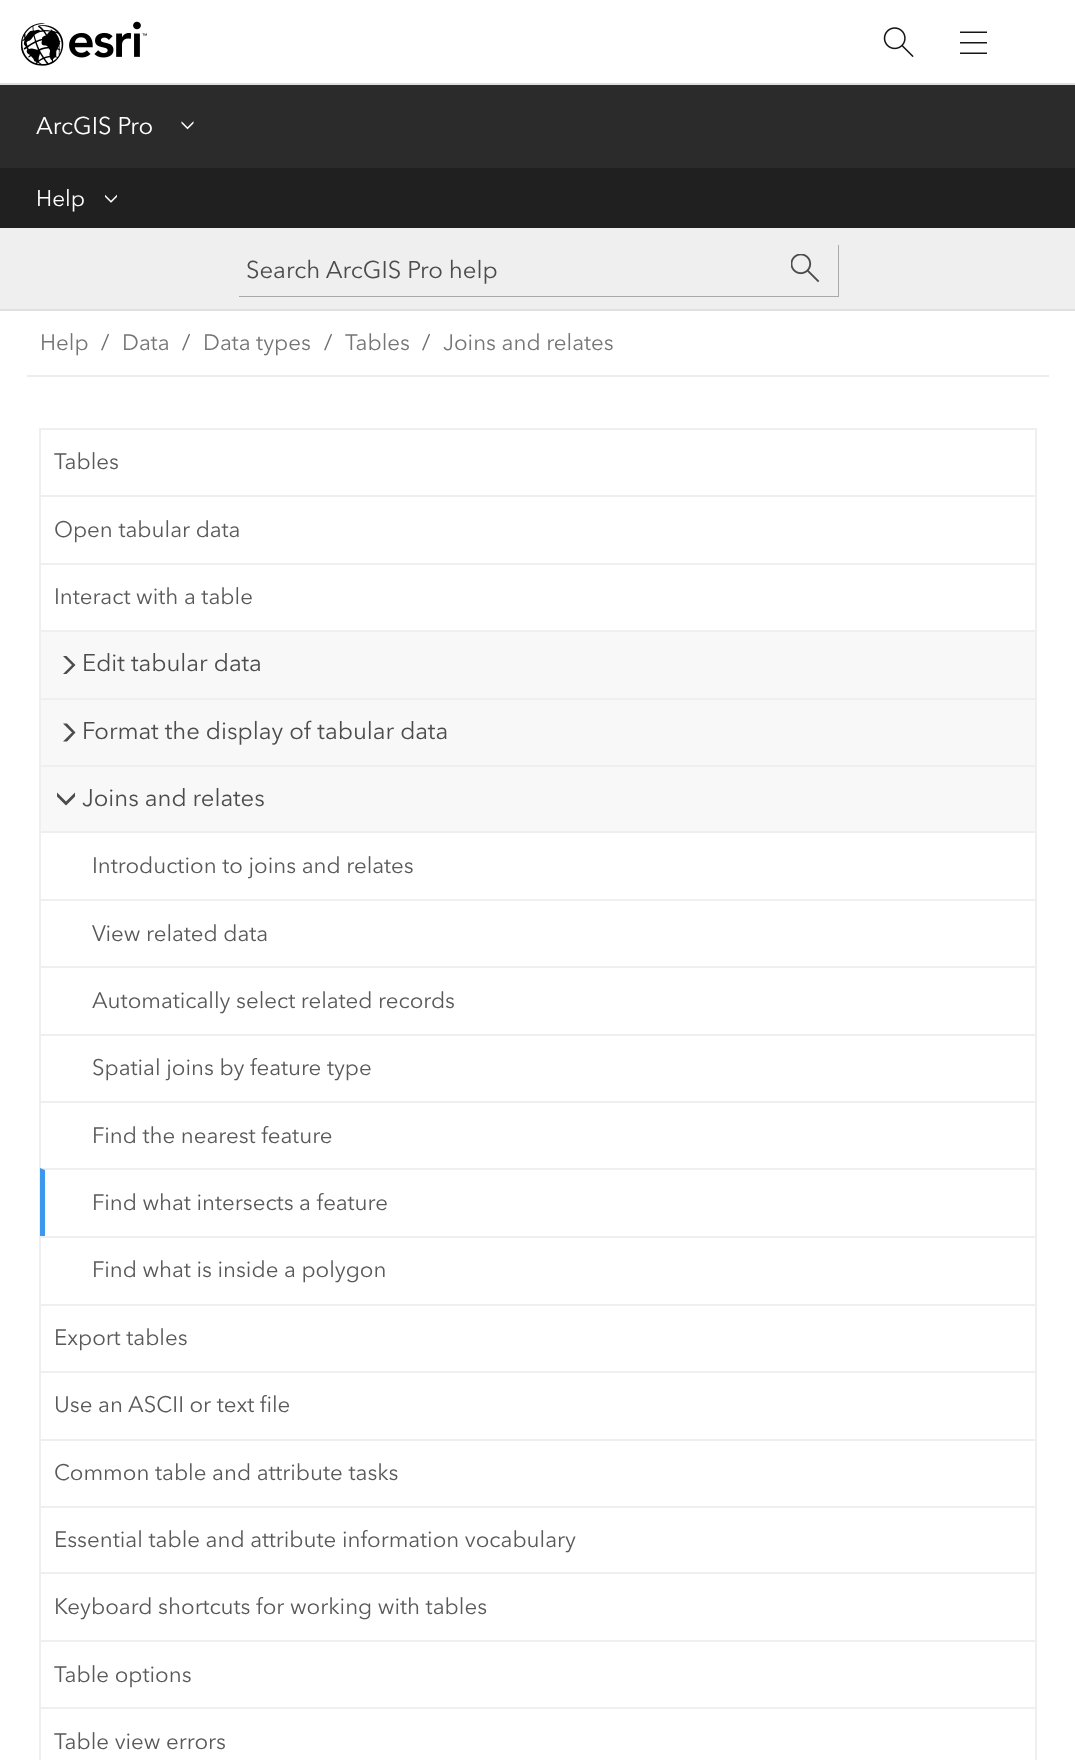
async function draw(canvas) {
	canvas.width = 1075;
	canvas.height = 1760;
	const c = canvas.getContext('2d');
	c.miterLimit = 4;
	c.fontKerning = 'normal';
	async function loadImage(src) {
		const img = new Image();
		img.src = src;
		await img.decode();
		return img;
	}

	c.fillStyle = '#fff';
	c.fillRect(0, 0, 1075, 1760);
	c.fillStyle = '#dfdfdf';
	c.fillRect(0, 83, 1075, 2);
	c.drawImage(await loadImage('img1.png'), 21, 21, 126, 45);
	c.drawImage(await loadImage('img2.png'), 883, 27, 31, 30);
	c.drawImage(await loadImage('img3.png'), 960, 31, 27, 23);
	c.fillStyle = '#2b2b2b';
	c.fillRect(0, 85, 1075, 83);
	c.font = '24px Avenir Next';
	c.fillStyle = '#fff';
	c.fillText('ArcGIS Pro', 36, 134);
	c.drawImage(await loadImage('img4.png'), 181, 121, 13, 9);
	c.fillStyle = '#202020';
	c.fillRect(0, 168, 1075, 60);
	c.font = '22.5px Avenir Next';
	c.fillStyle = '#fff';
	c.fillText('Help', 36, 206);
	c.drawImage(await loadImage('img5.png'), 105, 194, 12, 9);
	c.fillStyle = '#efefef';
	c.fillRect(0, 228, 1075, 81);
	c.fillStyle = '#e0e0e0';
	c.fillRect(0, 309, 1075, 2);
	c.fillStyle = '#a9a9a9';
	c.beginPath();
	c.moveTo(239, 296);
	c.lineTo(239, 297);
	c.lineTo(839, 297);
	c.lineTo(839, 245);
	c.lineTo(838, 245);
	c.lineTo(838, 296);
	c.closePath();
	c.fill();
	c.font = '24px Avenir Next';
	c.fillStyle = '#4c4c4c';
	c.fillText('Search ArcGIS Pro help', 246, 278);
	c.drawImage(await loadImage('img6.png'), 791, 254, 29, 29);
	c.fillStyle = '#ededed';
	c.fillRect(27, 375, 1022, 2);
	c.font = '22.3px Avenir Next';
	c.fillStyle = '#757575';
	c.fillText('Help', 40, 350);
	c.fillStyle = '#6e6e6e';
	c.fillText('/', 101, 350);
	c.fillStyle = '#757575';
	c.fillText('Data', 122, 350);
	c.fillStyle = '#6e6e6e';
	c.fillText('/', 182, 350);
	c.fillStyle = '#757575';
	c.fillText('Data types', 203, 350);
	c.fillStyle = '#6e6e6e';
	c.fillText('/', 324, 350);
	c.fillStyle = '#757575';
	c.fillText('Tables', 345, 350);
	c.fillStyle = '#6e6e6e';
	c.fillText('/', 422, 350);
	c.fillStyle = '#757575';
	c.fillText('Joins and relates', 443, 350);
	for (const [x, y, w, h, color] of [
		[1035, 428, 2, 1332, '#efefef'],
		[39, 428, 2, 1332, '#efefef'],
		[41, 428, 994, 2, '#efefef'],
	]) {
		c.fillStyle = color;
		c.fillRect(x, y, w, h);
	}
	c.fillStyle = '#595959';
	c.fillText('Tables', 54, 469);
	c.fillStyle = '#efefef';
	c.fillRect(41, 495, 994, 2);
	c.fillStyle = '#595959';
	c.fillText('Open tabular data', 54, 537);
	c.fillStyle = '#efefef';
	c.fillRect(41, 563, 994, 2);
	c.fillStyle = '#595959';
	c.fillText('Interact with a table', 54, 604);
	c.fillStyle = '#f8f8f8';
	c.fillRect(41, 632, 994, 66);
	c.fillStyle = '#efefef';
	c.fillRect(41, 630, 994, 2);
	c.fillStyle = '#4c4c4c';
	c.beginPath();
	c.moveTo(63, 656);
	c.lineTo(66.5, 656);
	c.lineTo(75.5, 665);
	c.lineTo(66.5, 674);
	c.lineTo(63, 674);
	c.lineTo(72, 665);
	c.closePath();
	c.fill();
	c.font = '23.9px Avenir Next';
	c.fillText('Edit tabular data', 82, 671);
	c.fillStyle = '#f8f8f8';
	c.fillRect(41, 700, 994, 65);
	c.fillStyle = '#efefef';
	c.fillRect(41, 698, 994, 2);
	c.fillStyle = '#4c4c4c';
	c.beginPath();
	c.moveTo(63, 723.5);
	c.lineTo(67, 723.5);
	c.lineTo(75.5, 732.5);
	c.lineTo(67, 741.5);
	c.lineTo(63, 741.5);
	c.lineTo(72, 732.5);
	c.closePath();
	c.fill();
	c.fillText('Format the display of tabular data', 82, 739);
	c.fillStyle = '#f8f8f8';
	c.fillRect(41, 767, 994, 64);
	c.fillStyle = '#efefef';
	c.fillRect(41, 765, 994, 2);
	c.fillStyle = '#4c4c4c';
	c.beginPath();
	c.moveTo(75, 792.5);
	c.lineTo(75, 796.5);
	c.lineTo(66, 805.5);
	c.lineTo(57, 796.5);
	c.lineTo(57, 792.5);
	c.lineTo(66, 801.5);
	c.closePath();
	c.fill();
	c.fillText('Joins and relates', 82, 806);
	c.fillStyle = '#efefef';
	c.fillRect(41, 831, 994, 2);
	c.font = '22.3px Avenir Next';
	c.fillStyle = '#595959';
	c.fillText('Introduction to joins and relates', 92, 873);
	c.fillStyle = '#efefef';
	c.fillRect(41, 899, 994, 2);
	c.fillStyle = '#595959';
	c.fillText('View related data', 92, 941);
	c.fillStyle = '#efefef';
	c.fillRect(41, 966, 994, 2);
	c.fillStyle = '#595959';
	c.fillText('Automatically select related records', 92, 1008);
	c.fillStyle = '#efefef';
	c.fillRect(41, 1034, 994, 2);
	c.fillStyle = '#595959';
	c.fillText('Spatial joins by feature type', 92, 1075);
	c.fillStyle = '#efefef';
	c.fillRect(41, 1101, 994, 2);
	c.fillStyle = '#595959';
	c.fillText('Find the nearest feature', 92, 1143);
	c.fillStyle = '#efefef';
	c.beginPath();
	c.moveTo(40, 1168);
	c.lineTo(1035, 1168);
	c.lineTo(1035, 1170);
	c.lineTo(45, 1170);
	c.closePath();
	c.fill();
	c.fillStyle = '#3c98ee';
	c.beginPath();
	c.moveTo(40, 1236);
	c.lineTo(40, 1168);
	c.lineTo(45, 1170);
	c.lineTo(45, 1236);
	c.closePath();
	c.fill();
	c.fillStyle = '#595959';
	c.fillText('Find what intersects a feature', 92, 1210);
	c.fillStyle = '#efefef';
	c.fillRect(41, 1236, 994, 2);
	c.fillStyle = '#595959';
	c.fillText('Find what is inside a polygon', 92, 1277);
	c.fillStyle = '#efefef';
	c.fillRect(41, 1304, 994, 2);
	c.fillStyle = '#595959';
	c.fillText('Export tables', 54, 1345);
	c.fillStyle = '#efefef';
	c.fillRect(41, 1371, 994, 2);
	c.fillStyle = '#595959';
	c.fillText('Use an ASCII or text file', 54, 1412);
	c.fillStyle = '#efefef';
	c.fillRect(41, 1439, 994, 2);
	c.fillStyle = '#595959';
	c.fillText('Common table and attribute tasks', 54, 1480);
	c.fillStyle = '#efefef';
	c.fillRect(41, 1506, 994, 2);
	c.fillStyle = '#595959';
	c.fillText('Essential table and attribute information vocabulary', 54, 1547);
	c.fillStyle = '#efefef';
	c.fillRect(41, 1572, 994, 2);
	c.fillStyle = '#595959';
	c.fillText('Keyboard shortcuts for working with tables', 54, 1614);
	c.fillStyle = '#efefef';
	c.fillRect(41, 1640, 994, 2);
	c.fillStyle = '#595959';
	c.fillText('Table options', 54, 1682);
	c.fillStyle = '#efefef';
	c.fillRect(41, 1707, 994, 2);
	c.fillStyle = '#595959';
	c.fillText('Table view errors', 54, 1749);
}

draw(document.querySelector('canvas'));
